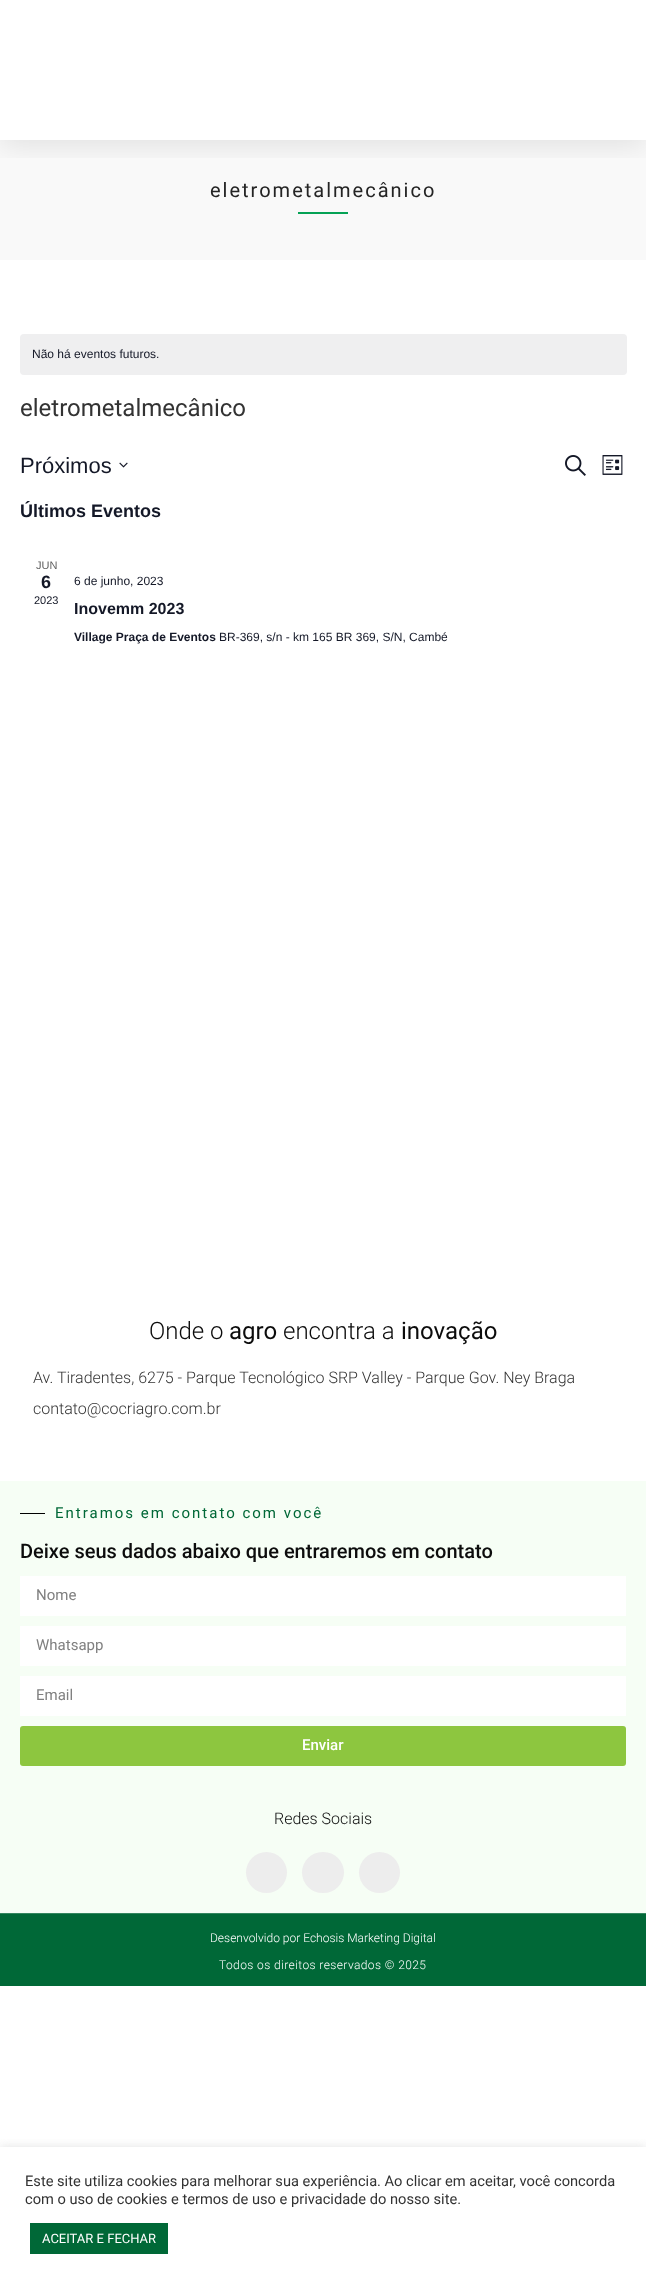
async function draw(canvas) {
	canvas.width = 646;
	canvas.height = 2284;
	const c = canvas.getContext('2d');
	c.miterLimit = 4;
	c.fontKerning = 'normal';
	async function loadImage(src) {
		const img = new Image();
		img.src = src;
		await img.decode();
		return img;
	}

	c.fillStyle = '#fff';
	c.fillRect(0, 0, 646, 2284);
	c.fillStyle = '#f9f9f9';
	c.fillRect(0, 140, 646, 120);
	c.save();
	c.beginPath();
	c.rect(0, 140, 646, 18);
	c.clip();
	c.fillStyle = '#0000001a';
	c.filter = 'blur(15px)';
	c.beginPath();
	c.rect(0, 5, 646, 140);
	c.fill();
	c.filter = 'none';
	c.restore();
	c.letterSpacing = '2px';
	c.font = '20px Roboto';
	c.fillStyle = '#242424';
	c.fillText('eletrometalmecânico', 210, 197);
	c.fillStyle = '#05a255';
	c.fillRect(298, 212, 50, 2);
	c.fillStyle = '#efeff0';
	c.beginPath();
	c.roundRect(20, 334, 607, 41, 4);
	c.fill();
	c.letterSpacing = '0px';
	c.font = '12px Liberation Sans';
	c.fillStyle = '#141827';
	c.fillText('Não há eventos futuros.', 32, 358);
	c.font = '24px Roboto';
	c.fillStyle = '#333';
	c.fillText('eletrometalmecânico', 20, 416);
	c.font = '22px Liberation Sans';
	c.fillStyle = '#141827';
	c.fillText('Próximos', 20, 473);
	c.drawImage(await loadImage('img1.png'), 119, 462, 9, 6);
	c.drawImage(await loadImage('img2.png'), 565, 455, 21, 21);
	c.drawImage(await loadImage('img3.png'), 602, 455, 21, 20);
	c.font = 'bold 18px Liberation Sans';
	c.fillText('Últimos Eventos', 20, 517);
	c.font = '11px Liberation Sans';
	c.fillStyle = '#5d5d5d';
	c.fillText('JUN', 36, 569);
	c.font = 'bold 18px Liberation Sans';
	c.fillStyle = '#141827';
	c.fillText('6', 41, 588);
	c.font = '11px Liberation Sans';
	c.fillText('2023', 34, 604);
	c.font = '12px Liberation Sans';
	c.fillText('6 de junho, 2023', 74, 585);
	c.font = 'bold 16px Liberation Sans';
	c.fillText('Inovemm 2023', 74, 614);
	c.font = 'bold 12px Liberation Sans';
	c.fillText('Village Praça de Eventos', 74, 641);
	c.font = '12px Liberation Sans';
	c.fillText('BR-369, s/n - km 165 BR 369, S/N, Cambé', 219, 641);
	c.font = '300 24px Roboto';
	c.fillStyle = '#0c0c0c';
	c.fillText('Onde o', 149, 1339);
	c.font = '24px Roboto';
	c.fillText('agro', 229, 1339);
	c.font = '300 24px Roboto';
	c.fillText('encontra a', 283, 1339);
	c.font = '24px Roboto';
	c.fillText('inovação', 401, 1339);
	c.font = '300 16px Roboto';
	c.fillStyle = '#333';
	c.fillText('Av. Tiradentes, 6275 - Parque Tecnológico SRP Valley - Parque Gov. Ney Braga', 33, 1383);
	c.fillText('contato@cocriagro.com.br', 33, 1414);
	c.fillStyle = '#f6fef5';
	c.fillRect(0, 1481, 646, 432);
	c.fillStyle = '#000';
	c.fillRect(20, 1513, 25, 1);
	c.letterSpacing = '2px';
	c.font = '15px Roboto';
	c.fillStyle = '#006837';
	c.fillText('Entramos em contato com você', 55, 1518);
	c.letterSpacing = '0px';
	c.font = '500 20px Roboto';
	c.fillStyle = '#0c0c0c';
	c.fillText('Deixe seus dados abaixo que entraremos em contato', 20, 1558);
	c.fillStyle = '#fff';
	c.fillRect(20, 1576, 606, 40);
	c.font = '15px Roboto';
	c.fillStyle = '#808080';
	c.fillText('Nome', 36, 1600);
	c.fillStyle = '#fff';
	c.fillRect(20, 1626, 606, 40);
	c.fillStyle = '#808080';
	c.fillText('Whatsapp', 36, 1650);
	c.fillStyle = '#fff';
	c.fillRect(20, 1676, 606, 40);
	c.fillStyle = '#808080';
	c.fillText('Email', 36, 1700);
	c.fillStyle = '#8dc63f';
	c.beginPath();
	c.roundRect(20, 1726, 606, 40, 3);
	c.fill();
	c.font = '500 15px Roboto';
	c.fillStyle = '#fff';
	c.fillText('Enviar', 302, 1750);
	c.font = '300 16px Roboto';
	c.fillStyle = '#0c0c0c';
	c.fillText('Redes Sociais', 274, 1824);
	c.fillStyle = '#ededed';
	c.beginPath();
	c.arc(266.5, 1872.5, 20.5, 0, 2 * Math.PI);
	c.fill();
	c.beginPath();
	c.roundRect(302, 1852, 42, 41, 20.5);
	c.fill();
	c.beginPath();
	c.arc(379.5, 1872.5, 20.5, 0, 2 * Math.PI);
	c.fill();
	c.fillStyle = '#006837';
	c.fillRect(0, 1914, 646, 72);
	c.fillStyle = '#33865f';
	c.fillRect(0, 1913, 646, 1);
	c.font = '300 12px Roboto';
	c.fillStyle = '#fff';
	c.fillText('Desenvolvido por Echosis Marketing Digital', 210, 1942);
	c.letterSpacing = '0.4px';
	c.fillText('Todos os direitos reservados © 2025', 219, 1969);
	c.save();
	c.beginPath();
	c.rect(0, 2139, 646, 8);
	c.clip();
	c.fillStyle = '#acabab4d';
	c.filter = 'blur(5px)';
	c.beginPath();
	c.rect(0, 2146, 646, 137);
	c.fill();
	c.filter = 'none';
	c.restore();
	c.letterSpacing = '0px';
	c.font = '14.65px Roboto';
	c.fillStyle = '#333';
	c.fillText('Este site utiliza cookies para melhorar sua experiência. Ao clicar em aceitar, você concorda', 25, 2186);
	c.fillText('com o uso de cookies e termos de uso e privacidade do nosso site.', 25, 2204);
	c.fillStyle = '#006837';
	c.fillRect(30, 2223, 138, 31);
	c.font = '13px Roboto';
	c.fillStyle = '#fff';
	c.fillText('ACEITAR E FECHAR', 42, 2243);
}

draw(document.querySelector('canvas'));
